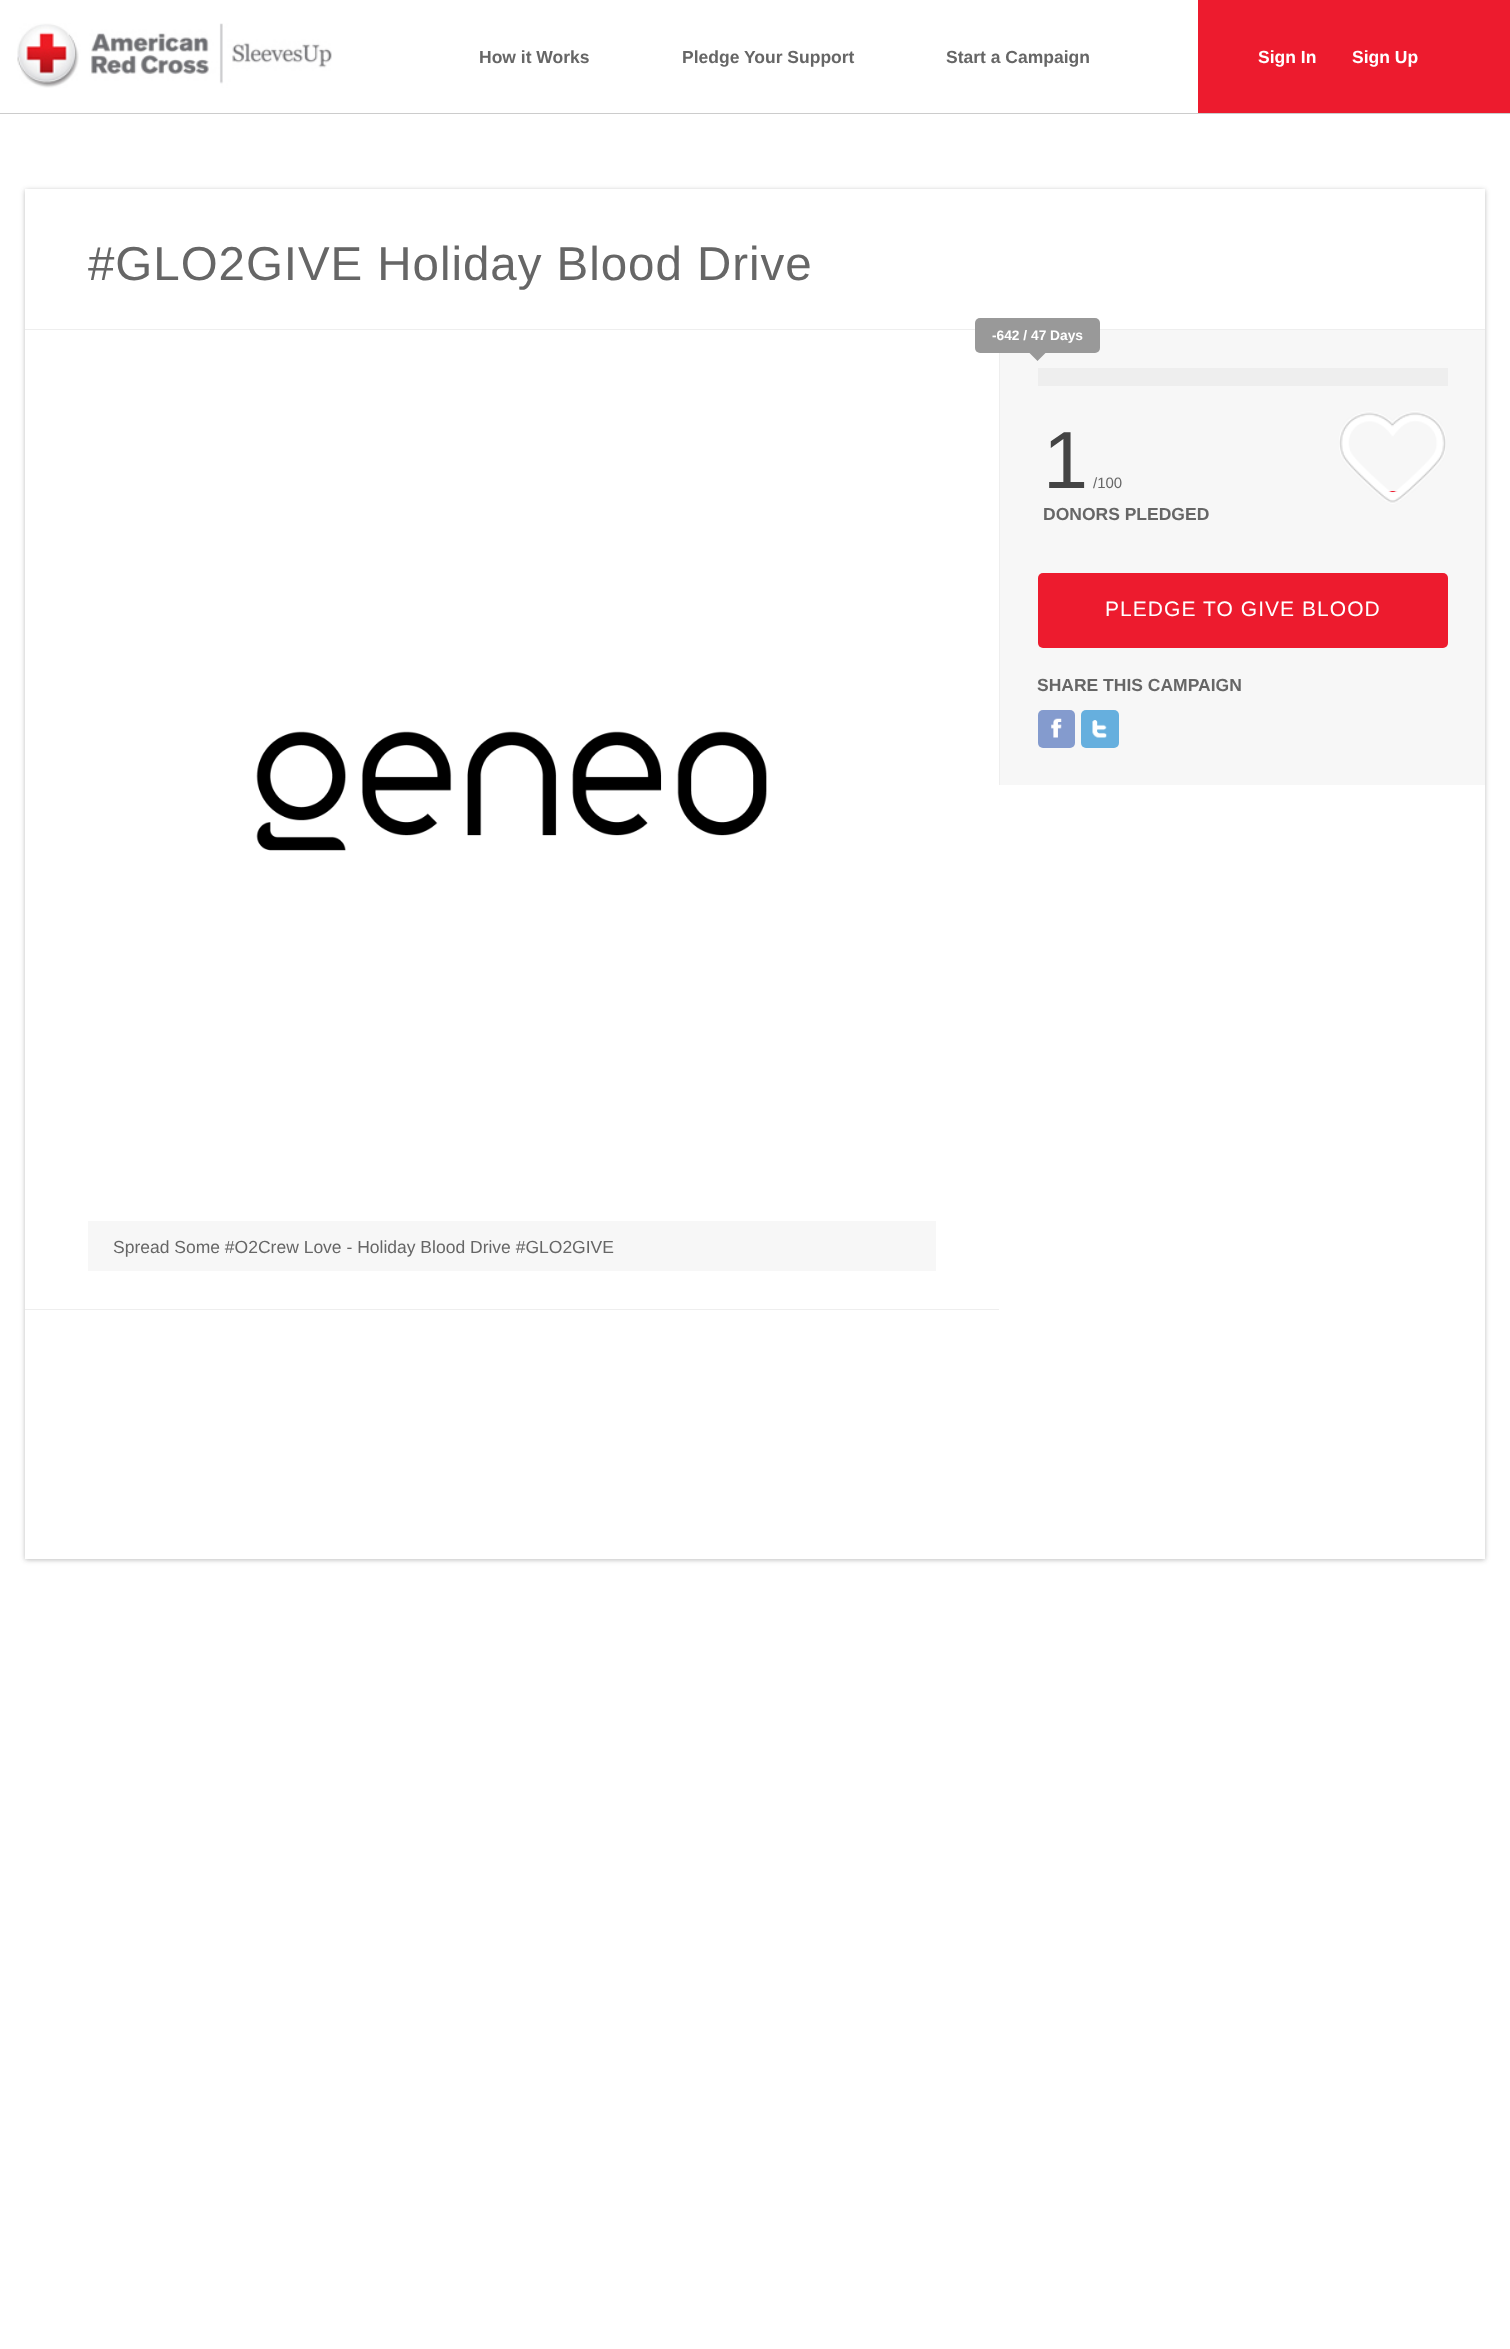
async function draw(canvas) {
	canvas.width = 1510;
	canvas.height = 2349;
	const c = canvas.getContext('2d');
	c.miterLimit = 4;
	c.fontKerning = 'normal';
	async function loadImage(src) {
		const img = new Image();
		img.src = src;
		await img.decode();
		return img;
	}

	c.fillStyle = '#fff';
	c.fillRect(0, 0, 1510, 2349);
	c.fillStyle = '#ccc';
	c.fillRect(0, 113, 1510, 1);
	c.drawImage(await loadImage('img1.png'), 17, 23, 315, 65);
	c.font = 'bold 17.5px Liberation Sans';
	c.fillStyle = '#666';
	for (const [text, x, y] of [
		['How it Works', 479, 63],
		['Pledge Your Support', 682, 63],
		['Start a Campaign', 946, 63],
	]) {
		c.fillText(text, x, y);
	}
	c.fillStyle = '#ed1b2e';
	c.fillRect(1198, 0, 312, 113);
	c.fillStyle = '#fff';
	c.fillText('Sign In', 1258, 63);
	c.fillText('Sign Up', 1352, 63);
	c.save();
	c.beginPath();
	c.moveTo(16, 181);
	c.lineTo(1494, 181);
	c.lineTo(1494, 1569);
	c.lineTo(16, 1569);
	c.closePath();
	c.moveTo(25, 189);
	c.lineTo(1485, 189);
	c.lineTo(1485, 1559);
	c.lineTo(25, 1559);
	c.closePath();
	c.clip('evenodd');
	c.fillStyle = '#2828284d';
	c.filter = 'blur(2.5px)';
	c.beginPath();
	c.rect(25, 190, 1460, 1370);
	c.fill();
	c.filter = 'none';
	c.restore();
	c.fillStyle = '#eee';
	c.fillRect(25, 329, 1460, 1);
	c.letterSpacing = '0.95px';
	c.font = '47.5px Liberation Sans';
	c.fillStyle = '#666';
	c.fillText('#GLO2GIVE Holiday Blood Drive', 88, 280);
	for (const [x, y, w, h, color] of [
		[1000, 330, 485, 455, '#f7f7f7'],
		[999, 353, 1, 432, '#eee'],
		[1038, 368, 410, 18, '#eee'],
	]) {
		c.fillStyle = color;
		c.fillRect(x, y, w, h);
	}
	c.fillStyle = '#999';
	c.beginPath();
	c.roundRect(975, 318, 125, 35, 5);
	c.fill();
	c.letterSpacing = '0px';
	c.font = 'bold 13.75px Liberation Sans';
	c.fillStyle = '#fff';
	c.fillText('-642 / 47 Days', 992, 340);
	c.fillStyle = '#999';
	c.beginPath();
	c.moveTo(1029, 352.5);
	c.lineTo(1046, 352.5);
	c.lineTo(1037.5, 361);
	c.closePath();
	c.fill();
	c.font = '81px Liberation Sans';
	c.fillStyle = '#444';
	c.fillText('1', 1043, 488);
	c.font = '15px Liberation Sans';
	c.fillStyle = '#666';
	c.fillText('/100', 1093, 488);
	c.font = 'bold 17.5px Liberation Sans';
	c.fillText('DONORS PLEDGED', 1043, 520);
	c.fillStyle = '#ed1b2e';
	c.fillRect(1388, 491, 10, 1);
	c.drawImage(await loadImage('img2.png'), 1339, 411, 107, 93);
	c.beginPath();
	c.roundRect(1038, 573, 410, 75, 5);
	c.fill();
	c.letterSpacing = '1.05px';
	c.font = '21px Liberation Sans';
	c.fillStyle = '#fff';
	c.fillText('PLEDGE TO GIVE BLOOD', 1105, 616);
	c.letterSpacing = '0px';
	c.font = 'bold 17.5px Liberation Sans';
	c.fillStyle = '#666';
	c.fillText('SHARE THIS CAMPAIGN', 1037, 691);
	c.fillStyle = '#849bce';
	c.beginPath();
	c.roundRect(1038, 710, 37, 38, 5);
	c.fill();
	c.drawImage(await loadImage('img3.png'), 1051, 718, 11, 20);
	c.fillStyle = '#66afde';
	c.beginPath();
	c.roundRect(1081, 710, 38, 38, 5);
	c.fill();
	c.drawImage(await loadImage('img4.png'), 1092, 720, 15, 18);
	c.drawImage(await loadImage('img5.png'), 256, 731, 511, 120);
	c.fillStyle = '#f7f7f7';
	c.fillRect(88, 1221, 848, 50);
	c.font = '17.5px Liberation Sans';
	c.fillStyle = '#666';
	c.fillText('Spread Some #O2Crew Love - Holiday Blood Drive #GLO2GIVE', 113, 1253);
	c.fillStyle = '#eee';
	c.fillRect(25, 1309, 974, 1);
}

draw(document.querySelector('canvas'));
